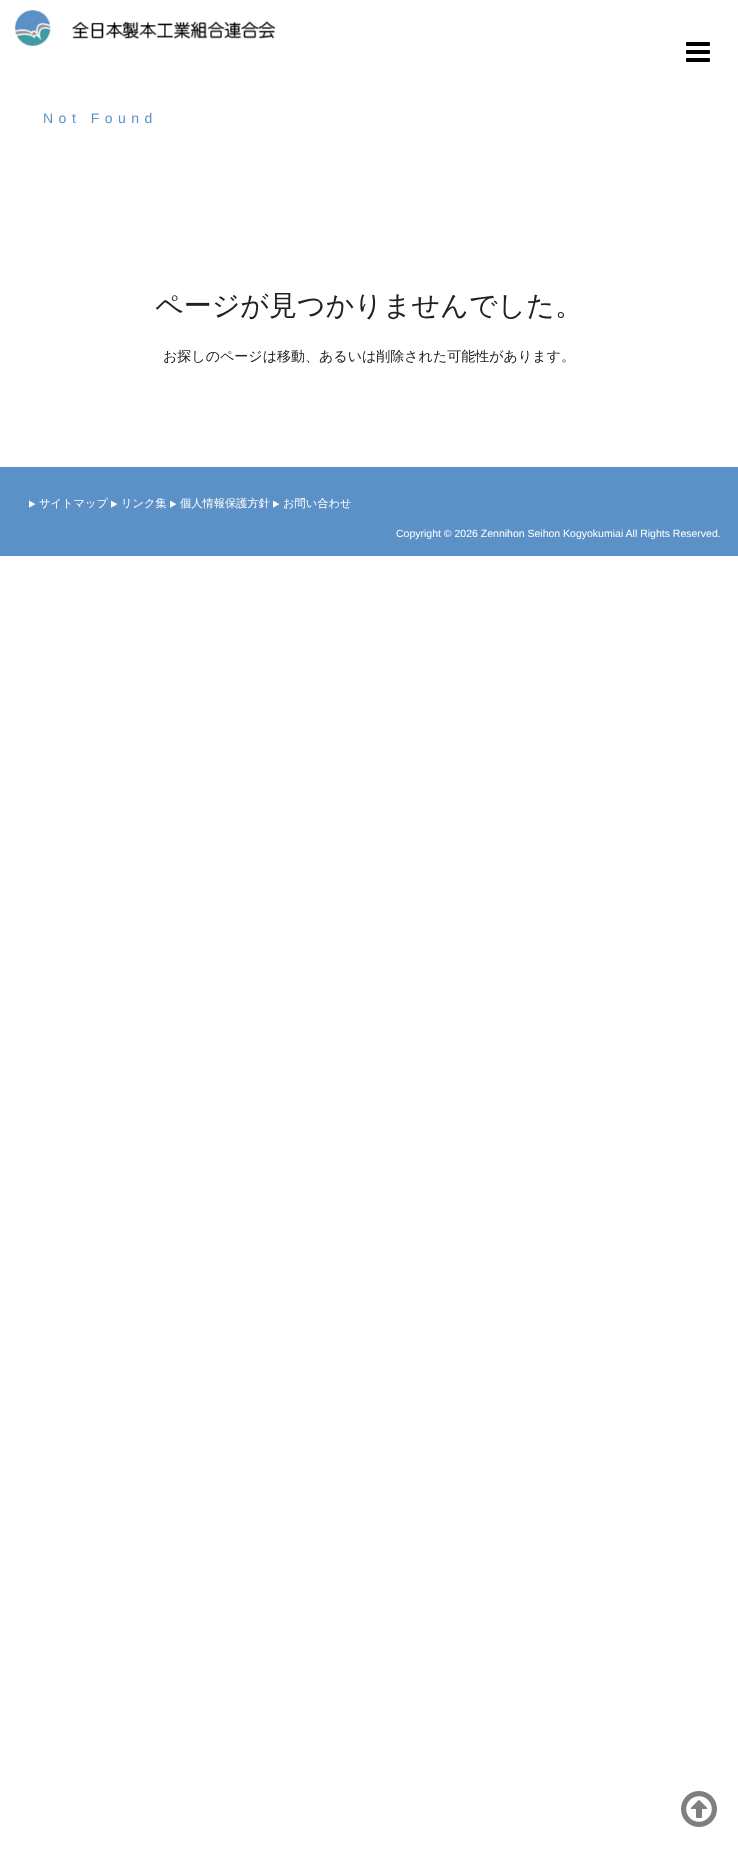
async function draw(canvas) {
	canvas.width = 738;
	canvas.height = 1851;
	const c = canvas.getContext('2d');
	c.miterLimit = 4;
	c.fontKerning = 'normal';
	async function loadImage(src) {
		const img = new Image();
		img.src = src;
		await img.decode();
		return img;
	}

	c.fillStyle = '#fff';
	c.fillRect(0, 0, 738, 1851);
	c.drawImage(await loadImage('img1.png'), 14, 10, 261, 36);
	c.drawImage(await loadImage('img2.png'), 686, 42, 24, 20);
	c.letterSpacing = '5.5px';
	c.font = '14px Liberation Sans';
	c.fillStyle = '#5b91c7';
	c.fillText('Not Found', 43, 123);
	c.letterSpacing = '0px';
	c.font = '500 28px WenQuanYi Zen Hei';
	c.fillStyle = '#212121';
	c.fillText('ページが見つかりませんでした。', 155, 315);
	c.font = '500 14px WenQuanYi Zen Hei';
	c.fillText('お探しのページは移動、あるいは削除された可能性があります。', 163, 361);
	c.fillStyle = '#5b91c7';
	c.fillRect(0, 467, 738, 89);
	c.drawImage(await loadImage('img3.png'), 29, 500, 7, 8);
	c.font = '500 11.25px WenQuanYi Zen Hei';
	c.fillStyle = '#fff';
	c.fillText('サイトマップ', 39, 507);
	c.drawImage(await loadImage('img3.png'), 111, 500, 7, 8);
	c.fillText('リンク集', 121, 507);
	c.drawImage(await loadImage('img3.png'), 170, 500, 7, 8);
	c.fillText('個人情報保護方針', 180, 507);
	c.drawImage(await loadImage('img3.png'), 273, 500, 7, 8);
	c.fillText('お問い合わせ', 283, 507);
	c.font = '10.5px Liberation Sans';
	c.fillText('Copyright © 2026 Zennihon Seihon Kogyokumiai All Rights Reserved.', 396, 537);
	c.drawImage(await loadImage('img4.png'), 681, 1791, 36, 36);
}

draw(document.querySelector('canvas'));
